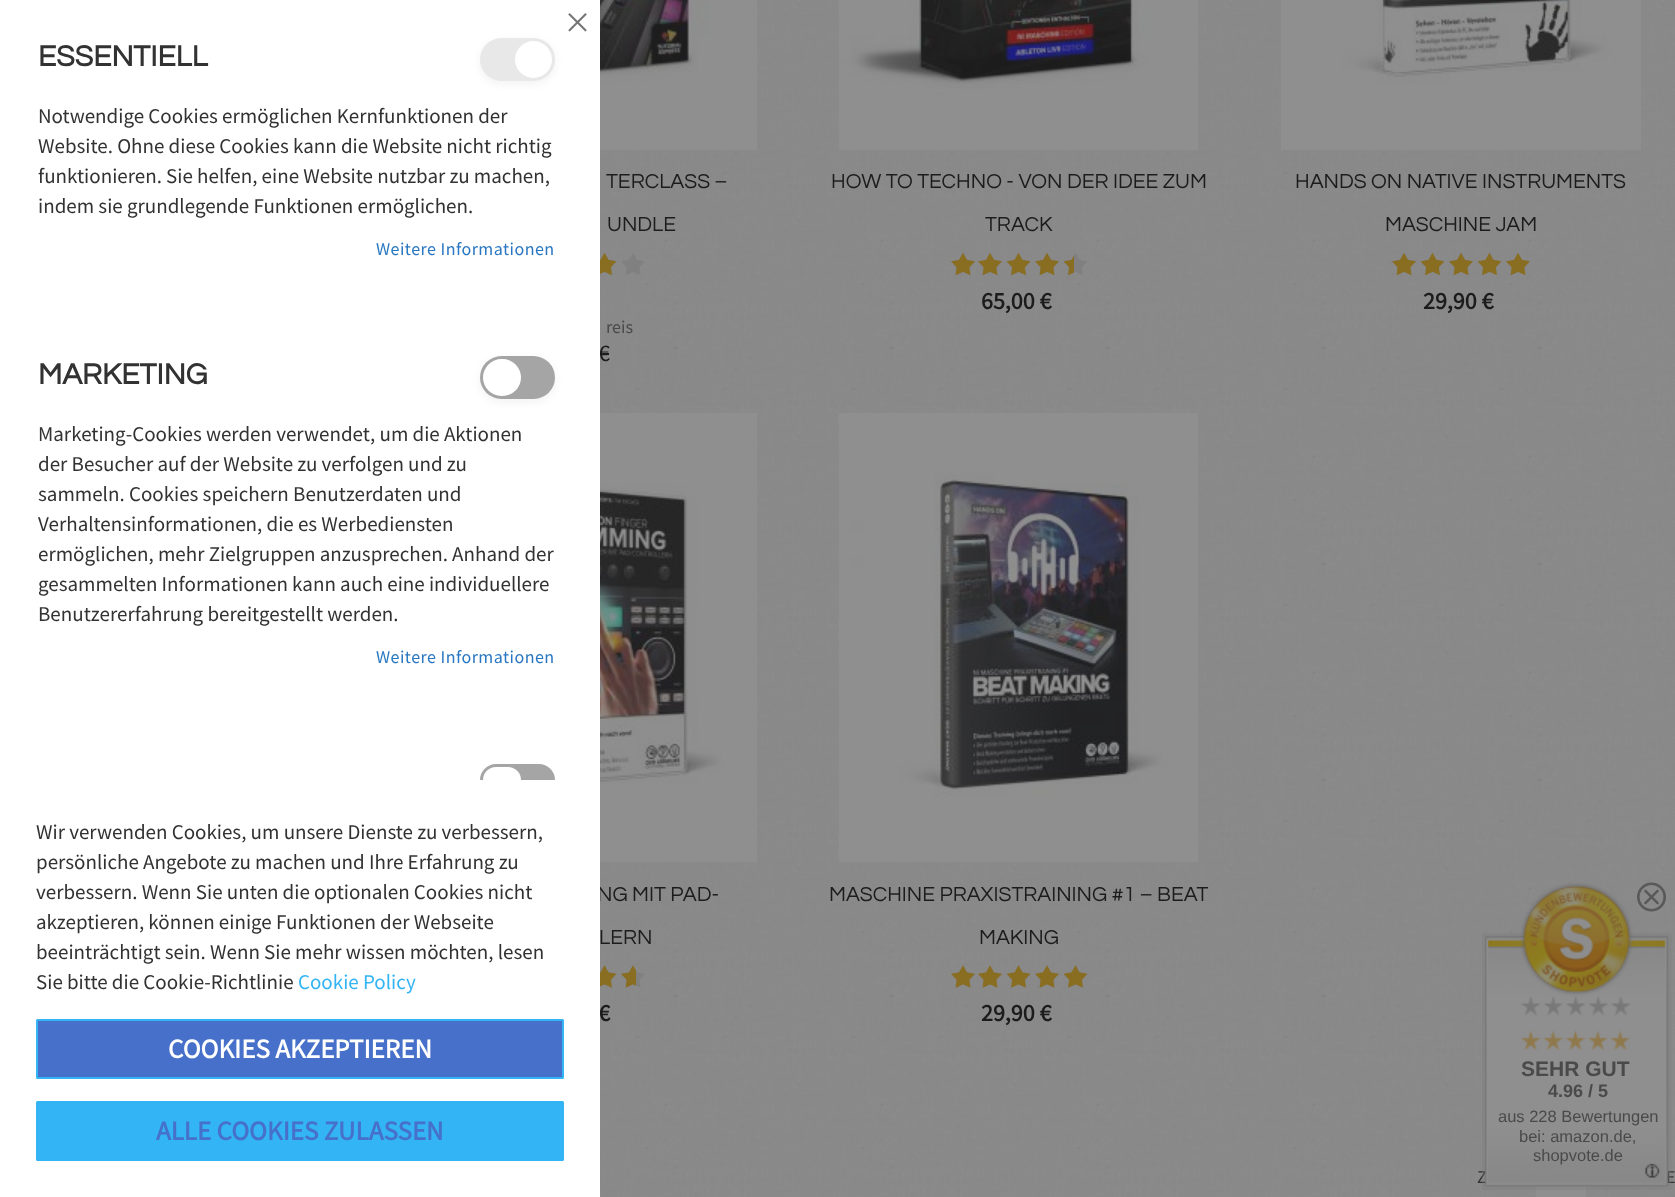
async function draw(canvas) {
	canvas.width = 1675;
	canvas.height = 1197;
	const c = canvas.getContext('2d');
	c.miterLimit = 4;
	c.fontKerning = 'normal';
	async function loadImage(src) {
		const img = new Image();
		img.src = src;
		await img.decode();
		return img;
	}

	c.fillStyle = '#fff';
	c.fillRect(0, 0, 1675, 1197);
	c.drawImage(await loadImage('img1.png'), 600, 0, 1075, 1197);
	c.font = '24px Source Sans Pro';
	c.fillStyle = '#1c1c1c';
	c.fillText('€', 598, 361);
	c.font = '21px Questrial';
	c.fillText('NG MIT PAD-', 597, 901);
	c.font = 'bold 24px Source Sans Pro';
	c.fillText('€', 598, 1021);
	c.fillStyle = '#fff';
	c.fillRect(598, 350, 2, 666);
	c.drawImage(await loadImage('img2.png'), 568, 13, 19, 19);
	c.font = 'bold 30px Questrial';
	c.fillStyle = '#323232';
	c.fillText('ESSENTIELL', 38, 66);
	c.fillStyle = '#0000000d';
	c.filter = 'blur(4px)';
	c.beginPath();
	c.roundRect(480, 41, 75, 43, 21.5);
	c.fill();
	c.filter = 'none';
	c.fillStyle = '#e8e8e8';
	c.beginPath();
	c.roundRect(480, 38, 75, 43, 21.5);
	c.fill();
	c.fillStyle = '#fff';
	c.beginPath();
	c.arc(533.5, 59.5, 18.5, 0, 2 * Math.PI);
	c.fill();
	c.font = '21px Source Sans Pro';
	c.fillStyle = '#323232';
	for (const [text, x, y] of [
		['Notwendige Cookies ermöglichen Kernfunktionen der', 38, 123],
		['Website. Ohne diese Cookies kann die Website nicht richtig', 38, 153],
		['funktionieren. Sie helfen, eine Website nutzbar zu machen,', 38, 183],
		['indem sie grundlegende Funktionen ermöglichen.', 38, 213],
	]) {
		c.fillText(text, x, y);
	}
	c.letterSpacing = '0.45px';
	c.font = '18px Source Sans Pro';
	c.fillStyle = '#2977c2';
	c.fillText('Weitere Informationen', 376, 255);
	c.letterSpacing = '0px';
	c.font = 'bold 30px Questrial';
	c.fillStyle = '#323232';
	c.fillText('MARKETING', 38, 384);
	c.fillStyle = '#0000000d';
	c.filter = 'blur(4px)';
	c.beginPath();
	c.roundRect(480, 359, 75, 43, 21.5);
	c.fill();
	c.filter = 'none';
	c.fillStyle = '#a5a5a5';
	c.beginPath();
	c.roundRect(480, 356, 75, 43, 21.5);
	c.fill();
	c.fillStyle = '#fff';
	c.beginPath();
	c.roundRect(483, 359, 38, 37, 18.5);
	c.fill();
	c.font = '21px Source Sans Pro';
	c.fillStyle = '#323232';
	for (const [text, x, y] of [
		['Marketing-Cookies werden verwendet, um die Aktionen', 38, 441],
		['der Besucher auf der Website zu verfolgen und zu', 38, 471],
		['sammeln. Cookies speichern Benutzerdaten und', 38, 501],
		['Verhaltensinformationen, die es Werbediensten', 38, 531],
		['ermöglichen, mehr Zielgruppen anzusprechen. Anhand der', 38, 561],
		['gesammelten Informationen kann auch eine individuellere', 38, 591],
		['Benutzererfahrung bereitgestellt werden.', 38, 621],
	]) {
		c.fillText(text, x, y);
	}
	c.letterSpacing = '0.45px';
	c.font = '18px Source Sans Pro';
	c.fillStyle = '#2977c2';
	c.fillText('Weitere Informationen', 376, 663);
	c.fillStyle = '#a5a5a5';
	c.beginPath();
	c.roundRect(480, 764, 75, 16, [21.5, 21.5, 0, 0]);
	c.fill();
	c.fillStyle = '#fff';
	c.beginPath();
	c.roundRect(483, 767, 38, 13, [18.5, 18.5, 0, 0]);
	c.fill();
	c.letterSpacing = '0px';
	c.font = '21px Source Sans Pro';
	c.fillStyle = '#323232';
	for (const [text, x, y] of [
		['Wir verwenden Cookies, um unsere Dienste zu verbessern,', 36, 839],
		['persönliche Angebote zu machen und Ihre Erfahrung zu', 36, 869],
		['verbessern. Wenn Sie unten die optionalen Cookies nicht', 36, 899],
		['akzeptieren, können einige Funktionen der Webseite', 36, 929],
		['beeinträchtigt sein. Wenn Sie mehr wissen möchten, lesen', 36, 959],
		['Sie bitte die Cookie-Richtlinie', 36, 989],
	]) {
		c.fillText(text, x, y);
	}
	c.fillStyle = '#33b4f4';
	c.fillText('Cookie Policy', 298, 989);
	c.fillStyle = '#4670c9';
	c.beginPath();
	c.roundRect(37, 1020, 526, 58, 0.5);
	c.fill();
	c.strokeStyle = '#33b4f4';
	c.lineWidth = 2;
	c.stroke();
	c.font = 'bold 27px Source Sans Pro';
	c.fillStyle = '#fff';
	c.fillText('COOKIES AKZEPTIEREN', 168, 1058);
	c.fillStyle = '#33b4f4';
	c.beginPath();
	c.roundRect(37, 1102, 526, 58, 0.5);
	c.fill();
	c.stroke();
	c.fillStyle = '#4670c9';
	c.fillText('ALLE COOKIES ZULASSEN', 156, 1140);
	c.drawImage(await loadImage('img3.png'), 600, 0, 158, 150);
	c.font = '21px Questrial';
	c.fillStyle = '#1c1c1c';
	c.fillText('TERCLASS –', 606, 188);
	c.fillText('UNDLE', 607, 231);
	c.drawImage(await loadImage('img5.png'), 600, 253, 16, 22);
	c.drawImage(await loadImage('img4.png'), 600, 252, 17, 24);
	c.drawImage(await loadImage('img6.png'), 621, 253, 24, 22);
	c.font = '18px Source Sans Pro';
	c.fillStyle = '#4a4a4a';
	c.fillText('reis', 606, 333);
	c.fillStyle = '#1c1c1c';
	c.fillRect(600, 353, 9, 2);
	c.drawImage(await loadImage('img7.png'), 838, 0, 360, 150);
	c.font = '21px Questrial';
	c.fillText('HOW TO TECHNO - VON DER IDEE ZUM', 831, 188);
	c.fillText('TRACK', 985, 231);
	c.drawImage(await loadImage('img13.png'), 951, 253, 24, 22);
	c.drawImage(await loadImage('img8.png'), 951, 253, 24, 23);
	c.drawImage(await loadImage('img14.png'), 978, 253, 24, 22);
	c.drawImage(await loadImage('img9.png'), 978, 253, 24, 23);
	c.drawImage(await loadImage('img15.png'), 1007, 253, 23, 22);
	c.drawImage(await loadImage('img10.png'), 1007, 252, 24, 24);
	c.drawImage(await loadImage('img16.png'), 1035, 253, 24, 22);
	c.drawImage(await loadImage('img11.png'), 1035, 253, 24, 23);
	c.drawImage(await loadImage('img17.png'), 1064, 253, 23, 22);
	c.drawImage(await loadImage('img12.png'), 1064, 255, 10, 21);
	c.font = 'bold 24px Source Sans Pro';
	c.fillText('65,00 €', 981, 309);
	c.drawImage(await loadImage('img18.png'), 1281, 0, 360, 150);
	c.font = '21px Questrial';
	c.fillText('HANDS ON NATIVE INSTRUMENTS', 1295, 188);
	c.fillText('MASCHINE JAM', 1385, 231);
	c.drawImage(await loadImage('img24.png'), 1392, 253, 24, 22);
	c.drawImage(await loadImage('img19.png'), 1392, 253, 24, 23);
	c.drawImage(await loadImage('img25.png'), 1421, 253, 23, 22);
	c.drawImage(await loadImage('img20.png'), 1421, 252, 24, 24);
	c.drawImage(await loadImage('img26.png'), 1449, 253, 24, 22);
	c.drawImage(await loadImage('img21.png'), 1449, 253, 24, 23);
	c.drawImage(await loadImage('img27.png'), 1478, 253, 23, 22);
	c.drawImage(await loadImage('img22.png'), 1478, 252, 24, 24);
	c.drawImage(await loadImage('img28.png'), 1506, 253, 24, 22);
	c.drawImage(await loadImage('img23.png'), 1506, 253, 24, 23);
	c.font = 'bold 24px Source Sans Pro';
	c.fillText('29,90 €', 1423, 309);
	c.drawImage(await loadImage('img29.png'), 600, 413, 158, 450);
	c.font = '21px Questrial';
	c.fillText('LERN', 599, 944);
	c.drawImage(await loadImage('img30.png'), 600, 965, 16, 23);
	c.drawImage(await loadImage('img31.png'), 621, 966, 24, 22);
	c.drawImage(await loadImage('img32.png'), 600, 965, 17, 23);
	c.drawImage(await loadImage('img33.png'), 621, 965, 15, 23);
	c.drawImage(await loadImage('img34.png'), 838, 413, 360, 450);
	c.fillText('MASCHINE PRAXISTRAINING #1 – BEAT', 829, 901);
	c.fillText('MAKING', 979, 944);
	c.drawImage(await loadImage('img35.png'), 951, 966, 24, 22);
	c.drawImage(await loadImage('img36.png'), 978, 966, 24, 22);
	c.drawImage(await loadImage('img37.png'), 1007, 965, 23, 23);
	c.drawImage(await loadImage('img38.png'), 1035, 966, 24, 22);
	c.drawImage(await loadImage('img39.png'), 1064, 965, 23, 23);
	c.drawImage(await loadImage('img40.png'), 951, 965, 24, 23);
	c.drawImage(await loadImage('img41.png'), 978, 965, 24, 23);
	c.drawImage(await loadImage('img42.png'), 1007, 965, 24, 23);
	c.drawImage(await loadImage('img43.png'), 1035, 965, 24, 23);
	c.drawImage(await loadImage('img44.png'), 1064, 965, 24, 23);
	c.font = 'bold 24px Source Sans Pro';
	c.fillText('29,90 €', 981, 1021);
	c.font = '18px Source Sans Pro';
	c.fillStyle = '#323232';
	c.fillText('Z', 1477, 1183);
	c.fillText('E', 1666, 1183);
	c.fillStyle = '#8f8f8f';
	c.fillRect(1536, 1184, 50, 13);
	c.drawImage(await loadImage('img45.png'), 1482, 882, 190, 308);
	c.drawImage(await loadImage('img46.png'), 1637, 882, 29, 30);
	c.drawImage(await loadImage('img47.png'), 1521, 1030, 109, 20);
	c.font = 'bold 21px Liberation Sans';
	c.fillStyle = '#4a4a4a';
	c.fillText('SEHR GUT', 1521, 1076);
	c.font = 'bold 18px Liberation Sans';
	c.fillText('4.96 / 5', 1548, 1097);
	c.font = '16.5px Liberation Sans';
	for (const [text, x, y] of [
		['aus 228 Bewertungen', 1498, 1122],
		['bei: amazon.de,', 1519, 1142],
		['shopvote.de', 1533, 1161],
	]) {
		c.fillText(text, x, y);
	}
}

draw(document.querySelector('canvas'));
